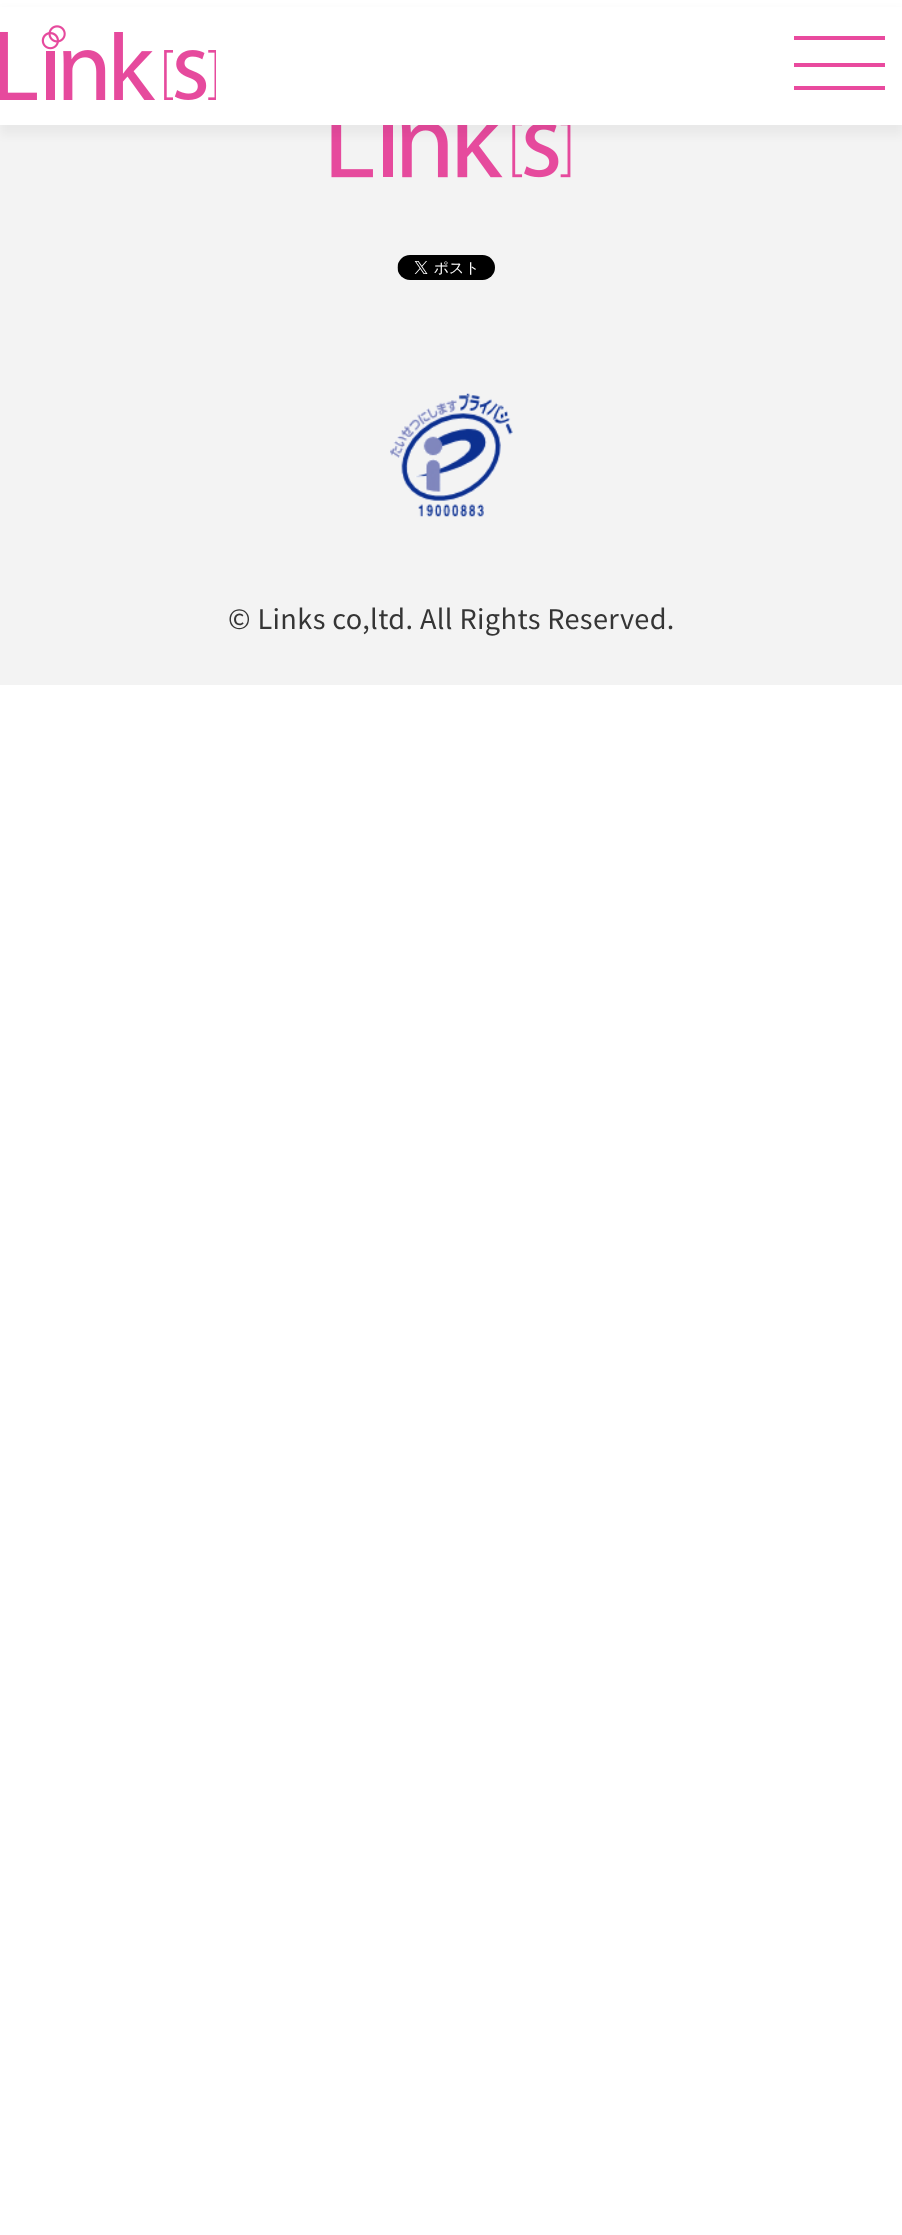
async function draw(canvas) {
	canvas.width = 902;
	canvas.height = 2235;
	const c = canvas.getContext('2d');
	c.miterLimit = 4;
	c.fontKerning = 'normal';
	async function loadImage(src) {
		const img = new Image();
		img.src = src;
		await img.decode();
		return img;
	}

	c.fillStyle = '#fff';
	c.fillRect(0, 0, 902, 2235);
	c.fillStyle = '#f3f3f3';
	c.fillRect(0, 125, 902, 560);
	c.drawImage(await loadImage('img2.png'), 331, 125, 240, 53);
	c.fillStyle = '#0000000a';
	c.filter = 'blur(5px)';
	c.beginPath();
	c.rect(0, 10, 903, 125);
	c.fill();
	c.filter = 'none';
	c.fillStyle = '#fff';
	c.fillRect(0, 7, 902, 118);
	c.drawImage(await loadImage('img1.png'), 0, 25, 216, 75);
	for (const [x, y, w, h, color] of [
		[794, 36, 91, 4, '#e94a9e'],
		[794, 63, 91, 4, '#e94a9e'],
		[794, 86, 91, 4, '#e94a9e'],
	]) {
		c.fillStyle = color;
		c.fillRect(x, y, w, h);
	}
	c.drawImage(await loadImage('img3.png'), 397, 255, 98, 25);
	c.drawImage(await loadImage('img4.png'), 390, 393, 123, 124);
	c.letterSpacing = '0.4px';
	c.font = '27.1px Noto Sans JP';
	c.fillStyle = '#353535';
	c.fillText('© Links co,ltd. All Rights Reserved.', 228, 629);
}

draw(document.querySelector('canvas'));
